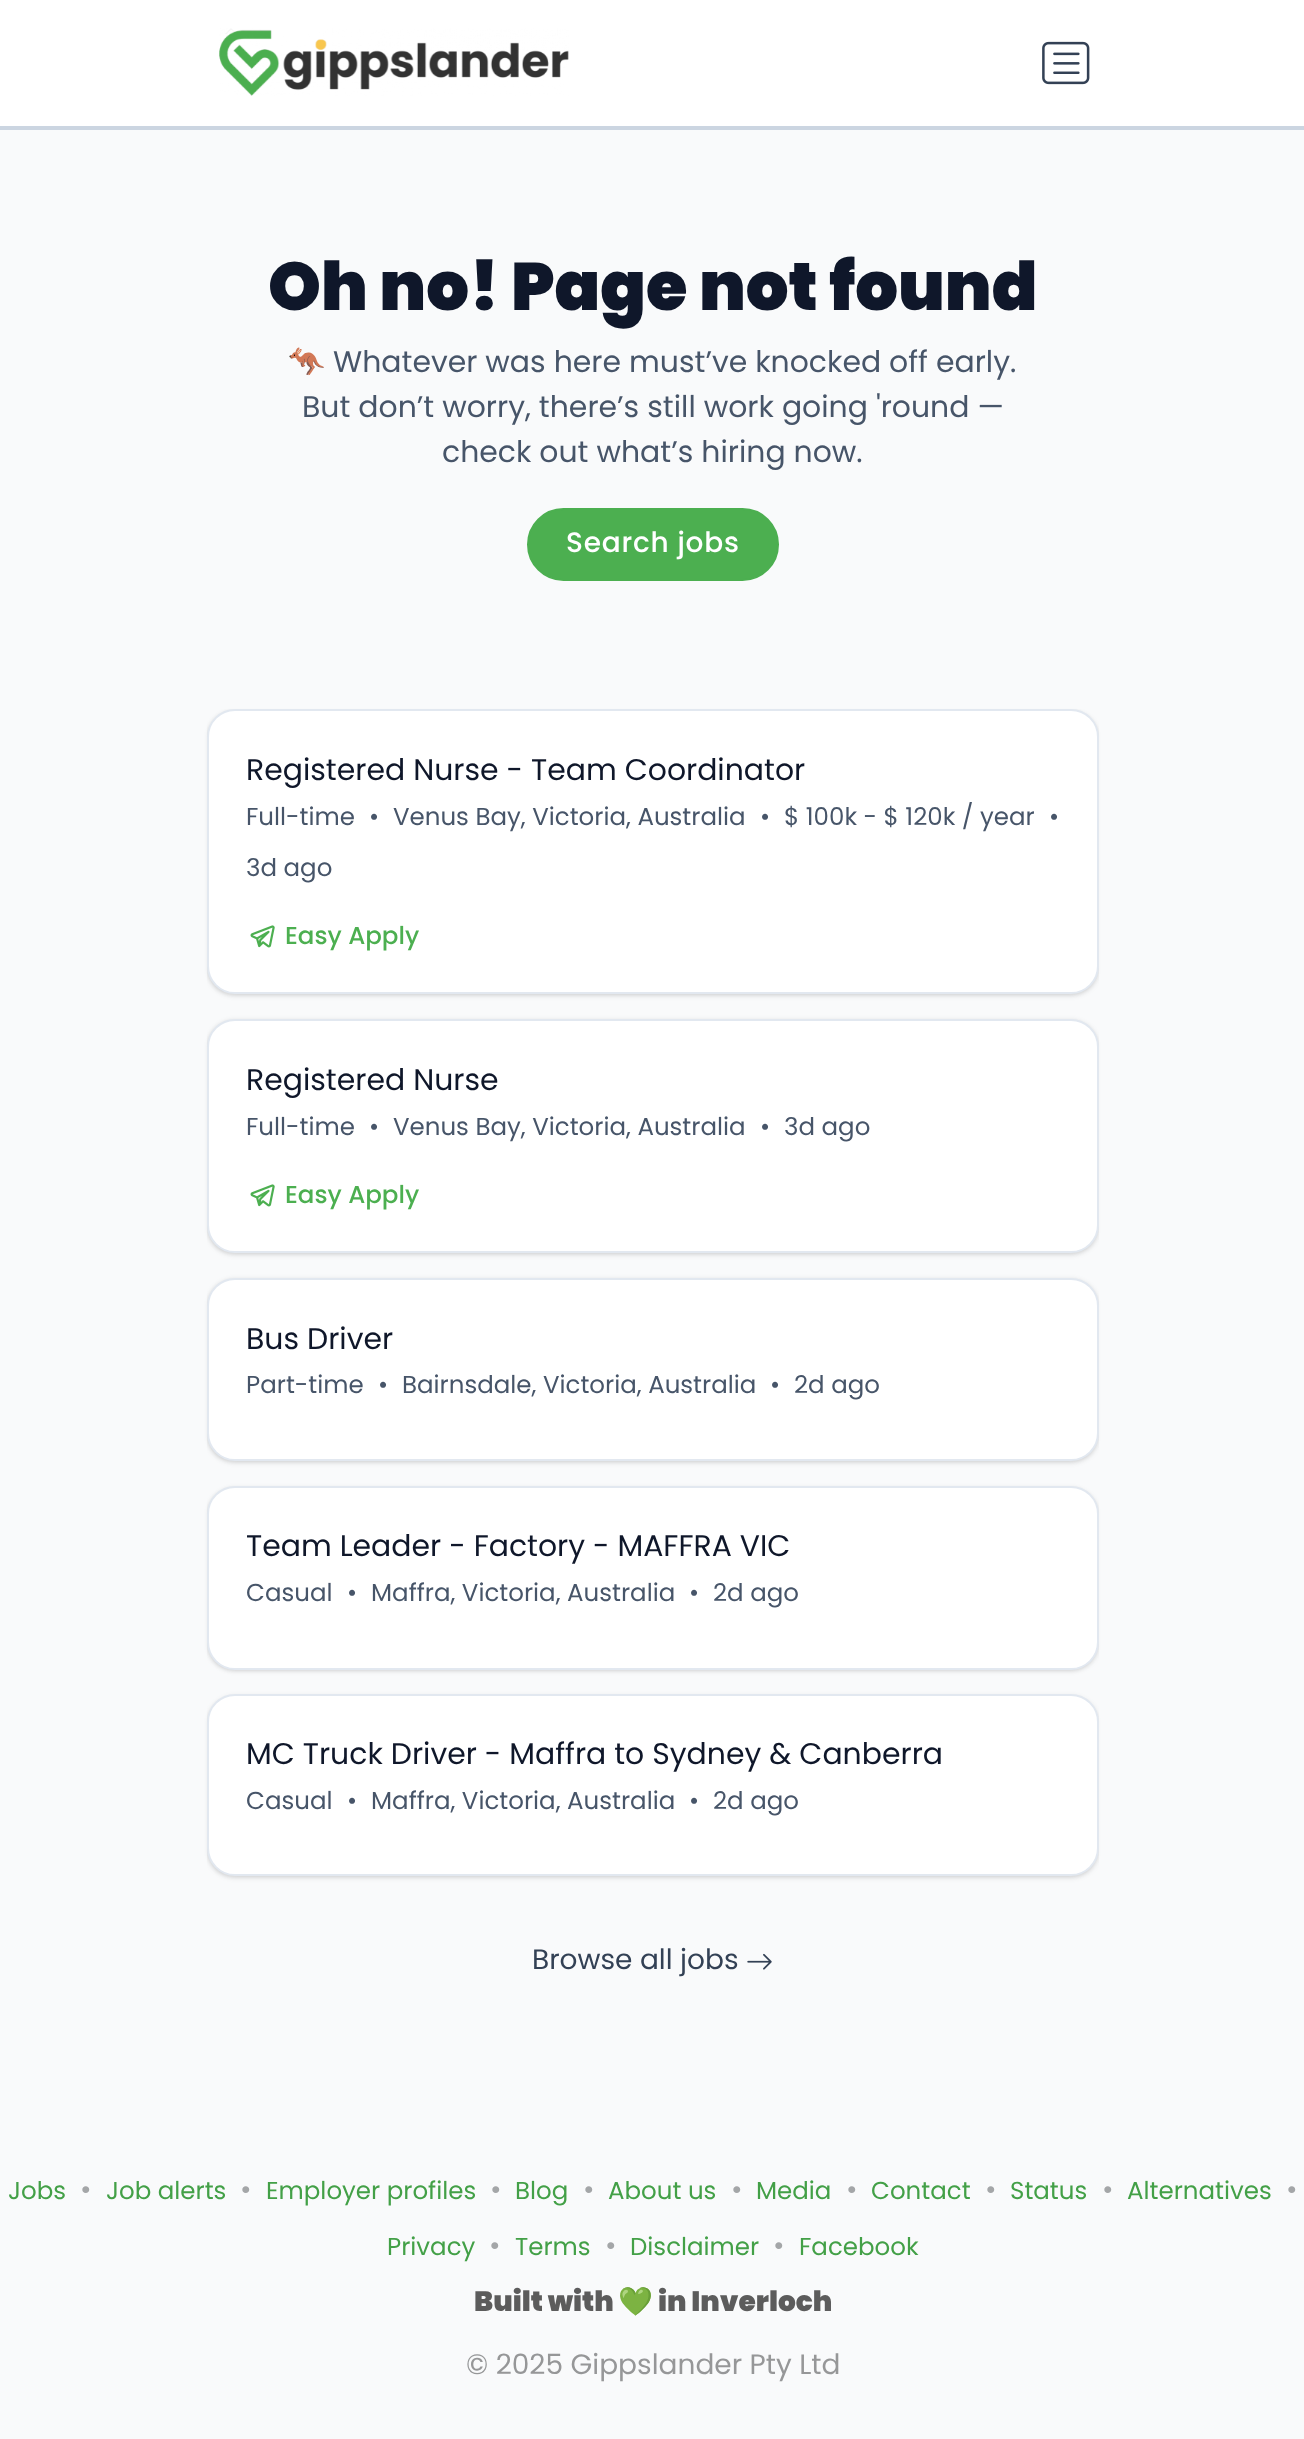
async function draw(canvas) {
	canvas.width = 1304;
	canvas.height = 2439;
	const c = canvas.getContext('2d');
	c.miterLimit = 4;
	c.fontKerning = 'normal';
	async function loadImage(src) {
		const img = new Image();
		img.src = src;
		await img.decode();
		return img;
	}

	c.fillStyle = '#f9fafb';
	c.fillRect(0, 0, 1304, 2439);
	c.fillStyle = '#fff';
	c.fillRect(0, 0, 1304, 126);
	c.fillStyle = '#cbd5e1';
	c.fillRect(0, 126, 1304, 4);
	c.drawImage(await loadImage('img1.png'), 219, 28, 350, 68);
	c.drawImage(await loadImage('img2.png'), 1042, 41, 48, 44);
	c.font = '900 67.25px Poppins';
	c.fillStyle = '#0f172a';
	c.fillText('Oh no! Page not found', 268, 310);
	c.font = '29.9px Noto Color Emoji';
	c.fillStyle = '#475569';
	c.fillText('🦘', 288, 372);
	c.font = '29.9px Poppins';
	for (const [text, x, y] of [
		['Whatever was here must’ve knocked off early.', 333, 372],
		['But don’t worry, there’s still work going \'round —', 302, 417],
		['check out what’s hiring now.', 442, 462],
	]) {
		c.fillText(text, x, y);
	}
	c.fillStyle = '#4caf50';
	c.beginPath();
	c.roundRect(528, 509, 250, 71, 35.5);
	c.fill();
	c.strokeStyle = '#4caf50';
	c.lineWidth = 2;
	c.stroke();
	c.letterSpacing = '0.75px';
	c.font = '500 28px Poppins';
	c.fillStyle = '#fff';
	c.fillText('Search jobs', 566, 552);
	c.fillStyle = '#0000001a';
	c.filter = 'blur(2px)';
	c.beginPath();
	c.roundRect(208, 712, 889, 282, 26);
	c.fill();
	c.filter = 'none';
	c.save();
	c.beginPath();
	c.rect(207, 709, 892, 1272);
	c.clip();
	c.filter = 'blur(2.5px)';
	c.beginPath();
	c.roundRect(207, 711, 892, 285, 28);
	c.fill();
	c.filter = 'none';
	c.restore();
	c.fillStyle = '#fff';
	c.beginPath();
	c.roundRect(208, 710, 890, 283, 27);
	c.fill();
	c.strokeStyle = '#e2e8f0';
	c.stroke();
	c.letterSpacing = '0px';
	c.font = '29.9px Poppins';
	c.fillStyle = '#0f172a';
	c.fillText('Registered Nurse - Team Coordinator', 246, 780);
	c.font = '24.5px Poppins';
	c.fillStyle = '#475569';
	for (const [text, x, y] of [
		['Full-time', 246, 825],
		['•', 369, 825],
		['Venus Bay, Victoria, Australia', 393, 825],
		['•', 760, 825],
		['$ 100k - $ 120k / year', 784, 825],
		['•', 1049, 825],
		['3d ago', 246, 876],
	]) {
		c.fillText(text, x, y);
	}
	c.drawImage(await loadImage('img3.png'), 250, 925, 25, 23);
	c.font = '500 24.5px Poppins';
	c.fillStyle = '#4caf50';
	c.fillText('Easy Apply', 285, 944);
	c.fillStyle = '#0000001a';
	c.filter = 'blur(2px)';
	c.beginPath();
	c.roundRect(208, 1022, 889, 231, 26);
	c.fill();
	c.filter = 'none';
	c.save();
	c.beginPath();
	c.rect(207, 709, 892, 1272);
	c.clip();
	c.filter = 'blur(2.5px)';
	c.beginPath();
	c.roundRect(207, 1020, 892, 235, 28);
	c.fill();
	c.filter = 'none';
	c.restore();
	c.fillStyle = '#fff';
	c.beginPath();
	c.roundRect(208, 1020, 890, 232, 27);
	c.fill();
	c.stroke();
	c.font = '29.9px Poppins';
	c.fillStyle = '#0f172a';
	c.fillText('Registered Nurse', 246, 1090);
	c.font = '24.5px Poppins';
	c.fillStyle = '#475569';
	for (const [text, x, y] of [
		['Full-time', 246, 1135],
		['•', 369, 1135],
		['Venus Bay, Victoria, Australia', 393, 1135],
		['•', 760, 1135],
		['3d ago', 784, 1135],
	]) {
		c.fillText(text, x, y);
	}
	c.drawImage(await loadImage('img3.png'), 250, 1184, 25, 23);
	c.font = '500 24.5px Poppins';
	c.fillStyle = '#4caf50';
	c.fillText('Easy Apply', 285, 1203);
	c.fillStyle = '#0000001a';
	c.filter = 'blur(2px)';
	c.beginPath();
	c.roundRect(208, 1281, 889, 180, 26);
	c.fill();
	c.filter = 'none';
	c.save();
	c.beginPath();
	c.rect(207, 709, 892, 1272);
	c.clip();
	c.filter = 'blur(2.5px)';
	c.beginPath();
	c.roundRect(207, 1279, 892, 184, 28);
	c.fill();
	c.filter = 'none';
	c.restore();
	c.fillStyle = '#fff';
	c.beginPath();
	c.roundRect(208, 1279, 890, 181, 27);
	c.fill();
	c.stroke();
	c.font = '29.9px Poppins';
	c.fillStyle = '#0f172a';
	c.fillText('Bus Driver', 246, 1349);
	c.font = '24.5px Poppins';
	c.fillStyle = '#475569';
	for (const [text, x, y] of [
		['Part-time', 246, 1393],
		['•', 378, 1393],
		['Bairnsdale, Victoria, Australia', 402, 1393],
		['•', 770, 1393],
		['2d ago', 794, 1393],
	]) {
		c.fillText(text, x, y);
	}
	c.fillStyle = '#0000001a';
	c.filter = 'blur(2px)';
	c.beginPath();
	c.roundRect(208, 1489, 889, 181, 26);
	c.fill();
	c.filter = 'none';
	c.save();
	c.beginPath();
	c.rect(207, 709, 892, 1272);
	c.clip();
	c.filter = 'blur(2.5px)';
	c.beginPath();
	c.roundRect(207, 1488, 892, 183, 28);
	c.fill();
	c.filter = 'none';
	c.restore();
	c.fillStyle = '#fff';
	c.beginPath();
	c.roundRect(208, 1487, 890, 182, 27);
	c.fill();
	c.stroke();
	c.font = '29.9px Poppins';
	c.fillStyle = '#0f172a';
	c.fillText('Team Leader - Factory - MAFFRA VIC', 246, 1556);
	c.font = '24.5px Poppins';
	c.fillStyle = '#475569';
	for (const [text, x, y] of [
		['Casual', 246, 1601],
		['•', 347, 1601],
		['Maffra, Victoria, Australia', 371, 1601],
		['•', 689, 1601],
		['2d ago', 713, 1601],
	]) {
		c.fillText(text, x, y);
	}
	c.fillStyle = '#0000001a';
	c.filter = 'blur(2px)';
	c.beginPath();
	c.roundRect(208, 1698, 889, 178, 26);
	c.fill();
	c.filter = 'none';
	c.save();
	c.beginPath();
	c.rect(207, 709, 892, 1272);
	c.clip();
	c.filter = 'blur(2.5px)';
	c.beginPath();
	c.roundRect(207, 1696, 892, 182, 28);
	c.fill();
	c.filter = 'none';
	c.restore();
	c.fillStyle = '#fff';
	c.beginPath();
	c.roundRect(208, 1695, 890, 180, 27);
	c.fill();
	c.stroke();
	c.font = '29.9px Poppins';
	c.fillStyle = '#0f172a';
	c.fillText('MC Truck Driver - Maffra to Sydney & Canberra', 246, 1764);
	c.font = '24.5px Poppins';
	c.fillStyle = '#475569';
	for (const [text, x, y] of [
		['Casual', 246, 1809],
		['•', 347, 1809],
		['Maffra, Victoria, Australia', 371, 1809],
		['•', 689, 1809],
		['2d ago', 713, 1809],
	]) {
		c.fillText(text, x, y);
	}
	c.font = '28px Poppins';
	c.fillStyle = '#334155';
	c.fillText('Browse all jobs', 532, 1969);
	c.drawImage(await loadImage('img4.png'), 747, 1953, 25, 17);
	c.font = '24.5px Poppins';
	c.fillStyle = '#43a047';
	c.fillText('Jobs', 8, 2199);
	c.font = '28px Poppins';
	c.fillStyle = '#a4a6a8';
	c.fillText('•', 80, 2199);
	c.font = '24.5px Poppins';
	c.fillStyle = '#43a047';
	c.fillText('Job alerts', 106, 2199);
	c.font = '28px Poppins';
	c.fillStyle = '#a4a6a8';
	c.fillText('•', 240, 2199);
	c.font = '24.5px Poppins';
	c.fillStyle = '#43a047';
	c.fillText('Employer profiles', 266, 2199);
	c.font = '28px Poppins';
	c.fillStyle = '#a4a6a8';
	c.fillText('•', 490, 2199);
	c.font = '24.5px Poppins';
	c.fillStyle = '#43a047';
	c.fillText('Blog', 515, 2199);
	c.font = '28px Poppins';
	c.fillStyle = '#a4a6a8';
	c.fillText('•', 583, 2199);
	c.font = '24.5px Poppins';
	c.fillStyle = '#43a047';
	c.fillText('About us', 608, 2199);
	c.font = '28px Poppins';
	c.fillStyle = '#a4a6a8';
	c.fillText('•', 731, 2199);
	c.font = '24.5px Poppins';
	c.fillStyle = '#43a047';
	c.fillText('Media', 756, 2199);
	c.font = '28px Poppins';
	c.fillStyle = '#a4a6a8';
	c.fillText('•', 846, 2199);
	c.font = '24.5px Poppins';
	c.fillStyle = '#43a047';
	c.fillText('Contact', 871, 2199);
	c.font = '28px Poppins';
	c.fillStyle = '#a4a6a8';
	c.fillText('•', 985, 2199);
	c.font = '24.5px Poppins';
	c.fillStyle = '#43a047';
	c.fillText('Status', 1010, 2199);
	c.font = '28px Poppins';
	c.fillStyle = '#a4a6a8';
	c.fillText('•', 1102, 2199);
	c.font = '24.5px Poppins';
	c.fillStyle = '#43a047';
	c.fillText('Alternatives', 1127, 2199);
	c.font = '28px Poppins';
	c.fillStyle = '#a4a6a8';
	c.fillText('•', 1286, 2199);
	c.font = '24.5px Poppins';
	c.fillStyle = '#43a047';
	c.fillText('Privacy', 387, 2255);
	c.font = '28px Poppins';
	c.fillStyle = '#a4a6a8';
	c.fillText('•', 489, 2255);
	c.font = '24.5px Poppins';
	c.fillStyle = '#43a047';
	c.fillText('Terms', 515, 2255);
	c.font = '28px Poppins';
	c.fillStyle = '#a4a6a8';
	c.fillText('•', 605, 2255);
	c.font = '24.5px Poppins';
	c.fillStyle = '#43a047';
	c.fillText('Disclaimer', 630, 2255);
	c.font = '28px Poppins';
	c.fillStyle = '#a4a6a8';
	c.fillText('•', 773, 2255);
	c.font = '24.5px Poppins';
	c.fillStyle = '#43a047';
	c.fillText('Facebook', 799, 2255);
	c.font = '900 28px Poppins';
	c.fillStyle = '#5c5c5c';
	c.fillText('Built with', 474, 2311);
	c.font = 'bold 28px Noto Color Emoji';
	c.fillText('💚', 618, 2311);
	c.font = '900 28px Poppins';
	c.fillText('in Inverloch', 658, 2311);
	c.font = '28px Poppins';
	c.fillStyle = '#969798';
	c.fillText('© 2025 Gippslander Pty Ltd', 466, 2374);
}

draw(document.querySelector('canvas'));
